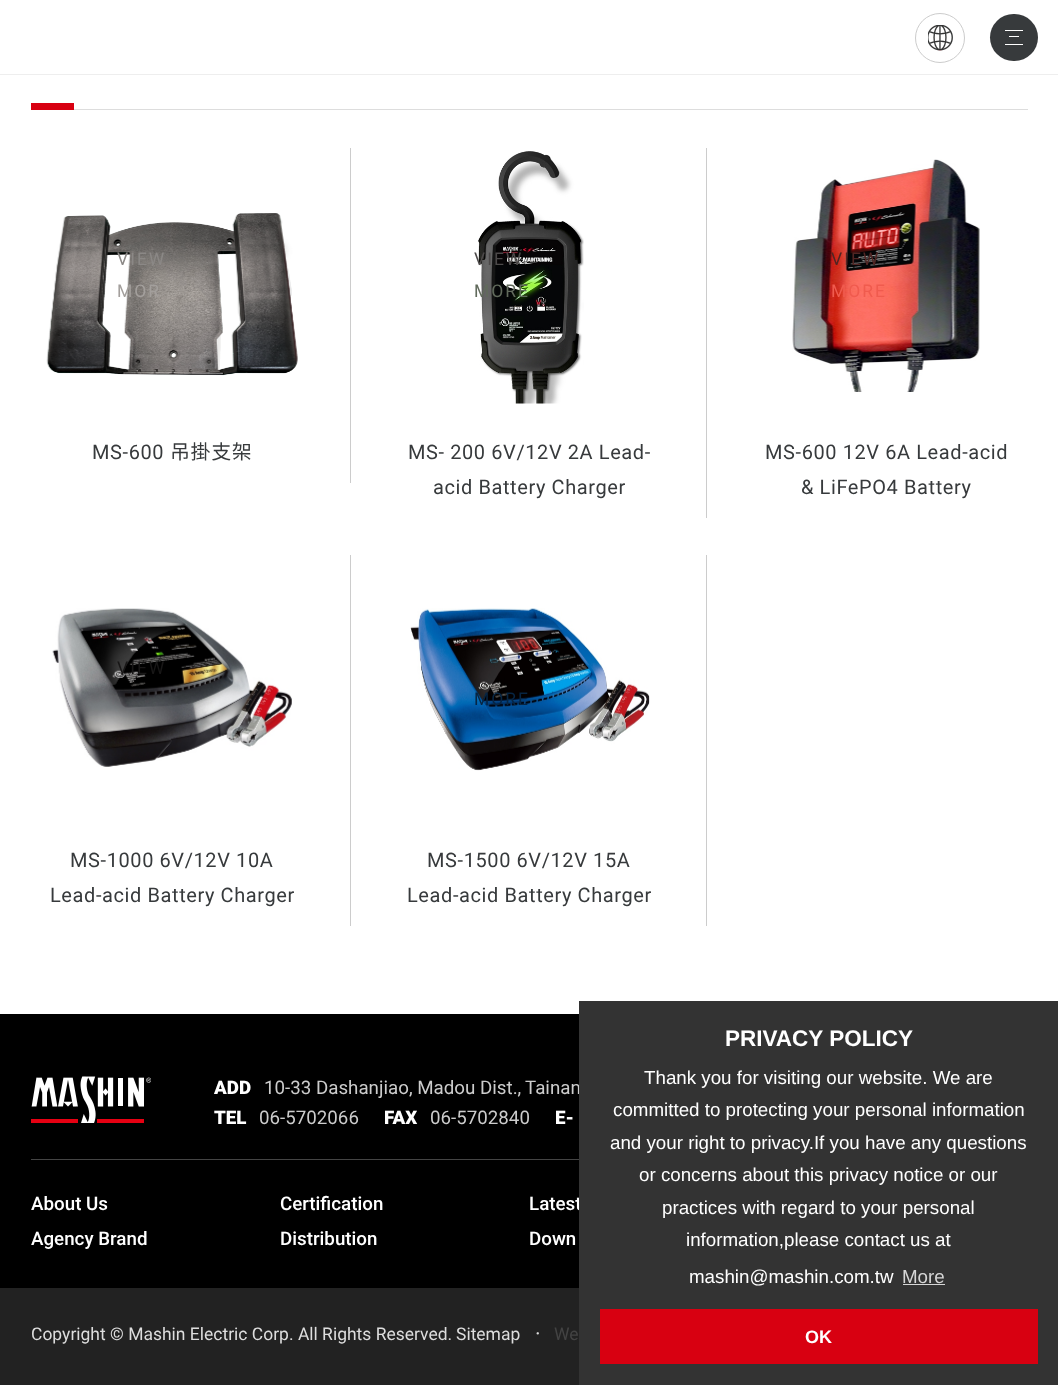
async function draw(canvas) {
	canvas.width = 1058;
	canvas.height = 1385;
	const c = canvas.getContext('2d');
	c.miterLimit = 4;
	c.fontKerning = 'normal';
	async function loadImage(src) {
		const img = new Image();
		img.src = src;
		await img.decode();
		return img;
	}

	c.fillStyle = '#fff';
	c.fillRect(0, 0, 1058, 1385);
	c.beginPath();
	c.arc(940, 38, 24.5, 0, 2 * Math.PI);
	c.strokeStyle = '#ccc';
	c.stroke();
	c.drawImage(await loadImage('img1.png'), 928, 25, 25, 26);
	c.fillStyle = '#373a3c';
	c.beginPath();
	c.roundRect(990, 14, 48, 47, 23.5);
	c.fill();
	for (const [x, y, w, h, color] of [
		[1005, 30, 18, 1, '#fff'],
		[1009, 36, 10, 1, '#fff'],
		[1005, 44, 18, 1, '#fff'],
		[0, 74, 1058, 1, '#eee'],
		[74, 109, 954, 1, '#ddd'],
		[31, 103, 43, 7, '#d80011'],
	]) {
		c.fillStyle = color;
		c.fillRect(x, y, w, h);
	}
	c.drawImage(await loadImage('img2.png'), 46, 213, 252, 163);
	c.letterSpacing = '2px';
	c.font = '17.5px Roboto';
	c.fillStyle = '#8b8886';
	c.fillText('VIEW', 117, 265);
	c.fillStyle = '#a39f9c';
	c.fillText('MOR', 117, 297);
	c.letterSpacing = '0.6px';
	c.font = '20px Roboto';
	c.fillStyle = '#373a3c';
	c.fillText('MS-600', 92, 459);
	c.font = '20px Noto Sans TC';
	c.fillText('吊掛支架', 170, 459);
	c.fillStyle = '#ccc';
	c.fillRect(350, 148, 1, 335);
	c.drawImage(await loadImage('img3.png'), 478, 151, 106, 253);
	c.letterSpacing = '2px';
	c.font = '17.5px Roboto';
	c.fillStyle = '#4c4949';
	c.fillText('VIEW', 474, 265);
	c.fillStyle = '#616a5c';
	c.fillText('MORE', 474, 297);
	c.letterSpacing = '0.6px';
	c.font = '20px Roboto';
	c.fillStyle = '#373a3c';
	c.fillText('MS- 200 6V/12V 2A Lead-', 408, 459);
	c.fillText('acid Battery Charger', 433, 494);
	c.fillStyle = '#ccc';
	c.fillRect(706, 148, 1, 370);
	c.drawImage(await loadImage('img4.png'), 792, 159, 188, 233);
	c.letterSpacing = '2px';
	c.font = '17.5px Roboto';
	c.fillStyle = '#512523';
	c.fillText('VIEW', 831, 265);
	c.fillStyle = '#f05b4e';
	c.fillText('MORE', 831, 297);
	c.letterSpacing = '0.6px';
	c.font = '20px Roboto';
	c.fillStyle = '#373a3c';
	c.fillText('MS-600 12V 6A Lead-acid', 765, 459);
	c.fillText('& LiFePO4 Battery', 801, 494);
	c.drawImage(await loadImage('img5.png'), 52, 608, 240, 159);
	c.letterSpacing = '2px';
	c.font = '17.5px Roboto';
	c.fillStyle = '#181717';
	c.fillText('VIEW', 117, 674);
	c.letterSpacing = '0.6px';
	c.font = '20px Roboto';
	c.fillStyle = '#373a3c';
	c.fillText('MS-1000 6V/12V 10A', 70, 867);
	c.fillText('Lead-acid Battery Charger', 50, 902);
	c.fillStyle = '#ccc';
	c.fillRect(350, 555, 1, 371);
	c.drawImage(await loadImage('img6.png'), 410, 608, 240, 163);
	c.letterSpacing = '2px';
	c.font = '17.5px Roboto';
	c.fillStyle = '#072543';
	c.fillText('MORE', 474, 705);
	c.letterSpacing = '0.6px';
	c.font = '20px Roboto';
	c.fillStyle = '#373a3c';
	c.fillText('MS-1500 6V/12V 15A', 427, 867);
	c.fillText('Lead-acid Battery Charger', 407, 902);
	c.fillStyle = '#ccc';
	c.fillRect(706, 555, 1, 371);
	c.fillStyle = '#000';
	c.fillRect(0, 1014, 579, 274);
	c.drawImage(await loadImage('img7.png'), 31, 1076, 120, 47);
	c.letterSpacing = '0px';
	c.font = '900 18.75px Roboto';
	c.fillStyle = '#fff';
	c.fillText('ADD', 214, 1094);
	c.font = '18.75px Roboto';
	c.fillStyle = '#ccc';
	c.fillText('10-33 Dashanjiao, Madou Dist.,', 264, 1094);
	c.fillText('Tainan', 525, 1094);
	c.font = '900 18.75px Roboto';
	c.fillStyle = '#fff';
	c.fillText('TEL', 214, 1124);
	c.font = '18.75px Roboto';
	c.fillStyle = '#ccc';
	c.fillText('06-5702066', 259, 1124);
	c.font = '900 18.75px Roboto';
	c.fillStyle = '#fff';
	c.fillText('FAX', 384, 1124);
	c.font = '18.75px Roboto';
	c.fillStyle = '#ccc';
	c.fillText('06-5702840', 430, 1124);
	c.font = '900 18.75px Roboto';
	c.fillStyle = '#fff';
	c.fillText('E-', 555, 1124);
	c.fillStyle = '#444';
	c.fillRect(31, 1159, 548, 1);
	c.font = '500 18.75px Roboto';
	c.fillStyle = '#fff';
	for (const [text, x, y] of [
		['About Us', 31, 1210],
		['Certification', 280, 1210],
		['Latest', 529, 1210],
		['Agency Brand', 31, 1245],
		['Distribution', 280, 1245],
		['Down', 529, 1245],
	]) {
		c.fillText(text, x, y);
	}
	c.fillStyle = '#222';
	c.fillRect(0, 1288, 579, 97);
	c.font = '17.5px Roboto';
	c.fillStyle = '#ddd';
	c.fillText('Copyright © Mashin Electric Corp. All Rights Reserved.', 31, 1340);
	c.fillText('Sitemap', 456, 1340);
	c.font = '17.5px Noto Sans TC';
	c.fillText('‧', 529, 1340);
	c.font = '17.5px Roboto';
	c.fillStyle = '#434343';
	c.fillText('We', 554, 1340);
	c.fillStyle = '#333';
	c.fillRect(579, 1001, 479, 384);
	c.font = 'bold 22.5px Liberation Sans';
	c.fillStyle = '#fff';
	c.fillText('PRIVACY POLICY', 725, 1046);
	c.font = '18.75px Liberation Sans';
	for (const [text, x, y] of [
		['Thank you for visiting our website. We are', 644, 1084],
		['committed to protecting your personal information', 613, 1116],
		['and your right to privacy.If you have any questions', 610, 1149],
		['or concerns about this privacy notice or our', 639, 1181],
		['practices with regard to your personal', 662, 1214],
		['information,please contact us at', 686, 1246],
		['mashin@mashin.com.tw', 689, 1283],
	]) {
		c.fillText(text, x, y);
	}
	c.fillStyle = '#d6d6d6';
	c.fillText('More', 902, 1283);
	c.fillRect(903, 1284, 42, 1);
	c.fillStyle = '#d80011';
	c.fillRect(600, 1309, 438, 55);
	c.font = 'bold 18px Liberation Sans';
	c.fillStyle = '#fff';
	c.fillText('OK', 805, 1343);
}

draw(document.querySelector('canvas'));
